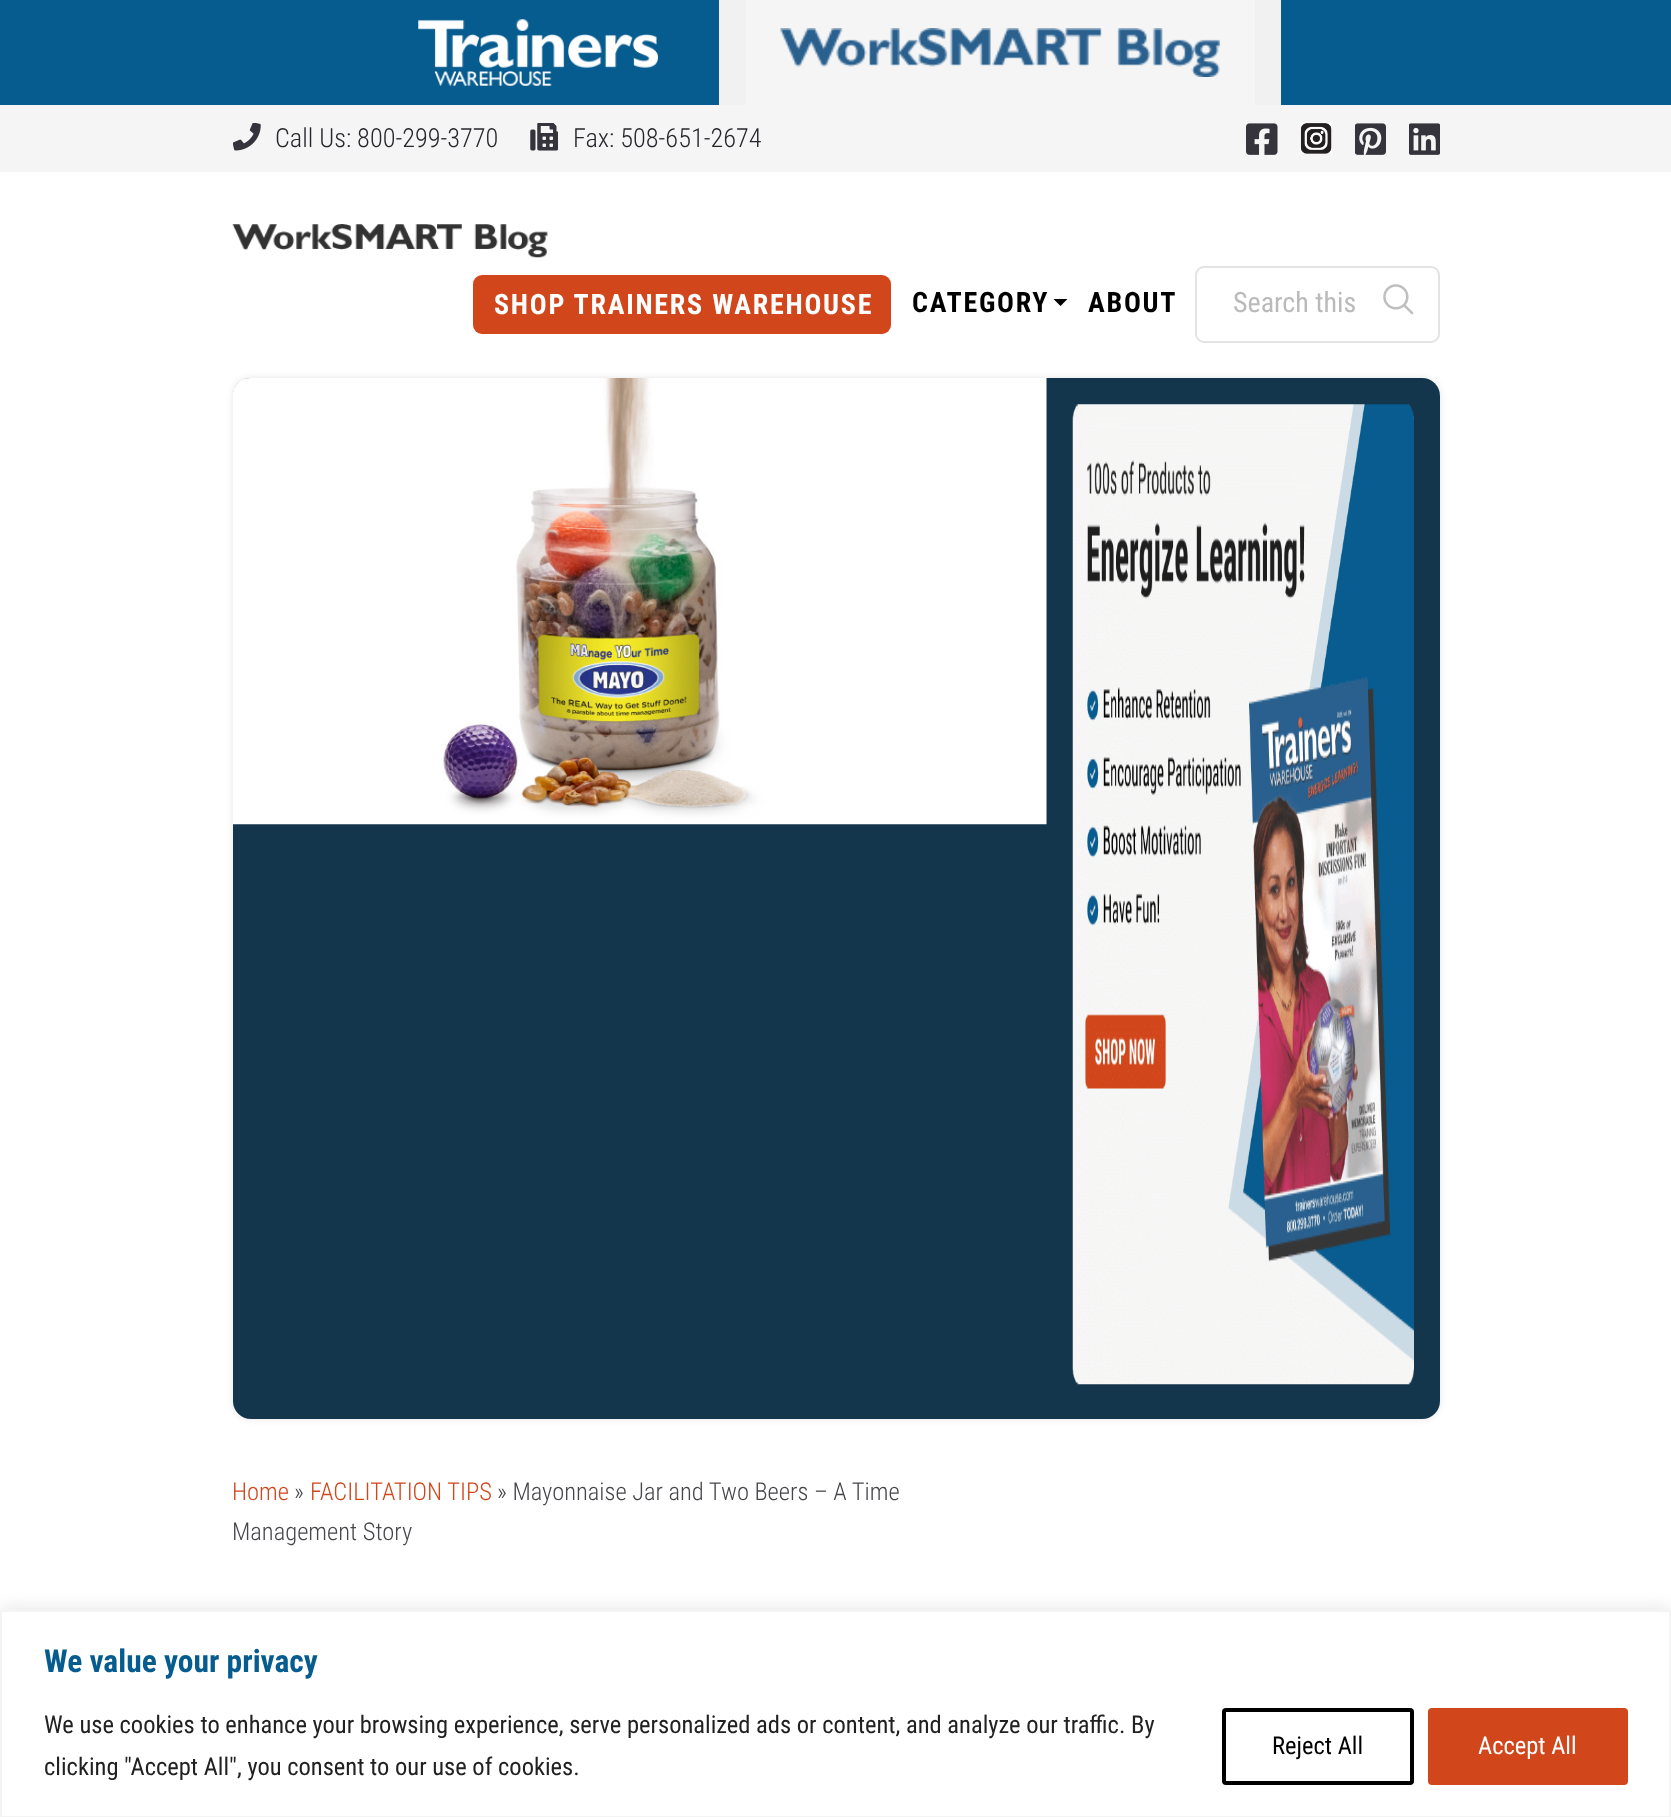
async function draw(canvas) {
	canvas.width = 1671;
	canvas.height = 1817;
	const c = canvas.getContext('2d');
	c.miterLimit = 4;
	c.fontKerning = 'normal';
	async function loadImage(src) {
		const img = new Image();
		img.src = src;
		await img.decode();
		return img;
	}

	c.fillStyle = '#fff';
	c.fillRect(0, 0, 1671, 1817);
	c.fillStyle = '#075c8f';
	c.fillRect(0, 0, 1671, 105);
	c.drawImage(await loadImage('img1.png'), 418, 19, 240, 67);
	c.fillStyle = '#f1f1f1';
	c.fillRect(719, 0, 562, 105);
	c.fillStyle = '#f5f5f5';
	c.fillRect(746, 0, 509, 105);
	c.drawImage(await loadImage('img2.png'), 780, 28, 440, 49);
	c.fillRect(0, 105, 1671, 67);
	c.drawImage(await loadImage('img3.png'), 233, 123, 28, 28);
	c.font = '300 26.25px Roboto Condensed';
	c.fillStyle = '#26252b';
	c.fillText('Call Us: 800-299-3770', 275, 147);
	c.drawImage(await loadImage('img4.png'), 530, 123, 28, 28);
	c.fillText('Fax: 508-651-2674', 573, 147);
	c.drawImage(await loadImage('img5.png'), 1246, 123, 32, 32);
	c.drawImage(await loadImage('img6.png'), 1300, 122, 32, 32);
	c.drawImage(await loadImage('img7.png'), 1355, 123, 31, 32);
	c.drawImage(await loadImage('img8.png'), 1409, 123, 31, 32);
	c.drawImage(await loadImage('img9.png'), 232, 224, 316, 34);
	c.fillStyle = '#d1471b';
	c.beginPath();
	c.roundRect(473, 275, 418, 59, 9);
	c.fill();
	c.letterSpacing = '1.75px';
	c.font = 'bold 28px Roboto Condensed';
	c.fillStyle = '#fff';
	c.fillText('SHOP TRAINERS WAREHOUSE', 494, 314);
	c.fillStyle = '#000';
	c.fillText('CATEGORY', 912, 312);
	c.beginPath();
	c.moveTo(1053.5, 299);
	c.lineTo(1067.5, 299);
	c.lineTo(1060.5, 306);
	c.closePath();
	c.fill();
	c.fillText('ABOUT', 1088, 312);
	c.beginPath();
	c.roundRect(1196, 267, 243, 75, 8);
	c.strokeStyle = '#e3e3e3';
	c.lineWidth = 2;
	c.stroke();
	c.letterSpacing = '0px';
	c.font = '28px Roboto Condensed';
	c.fillStyle = '#bababa';
	c.fillText('Search this', 1233, 312);
	c.drawImage(await loadImage('img10.png'), 1383, 284, 31, 31);
	c.fillStyle = '#0000001a';
	c.filter = 'blur(3.5px)';
	c.beginPath();
	c.roundRect(233, 378, 1207, 1041, 18);
	c.fill();
	c.filter = 'none';
	c.fillStyle = '#13364d';
	c.beginPath();
	c.roundRect(233, 378, 1207, 1041, 18);
	c.fill();
	c.drawImage(await loadImage('img11.png'), 233, 378, 814, 447);
	c.drawImage(await loadImage('img12.png'), 1072, 404, 342, 981);
	c.font = '300 24.5px Roboto Condensed';
	c.fillStyle = '#d1471b';
	c.fillText('Home', 232, 1500);
	c.fillStyle = '#46454a';
	c.fillText('»', 294, 1500);
	c.fillStyle = '#d1471b';
	c.fillText('FACILITATION TIPS', 310, 1500);
	c.fillStyle = '#46454a';
	c.fillText('» Mayonnaise Jar and Two Beers – A Time', 497, 1500);
	c.fillText('Management Story', 232, 1540);
	c.fillStyle = '#acabab4d';
	c.filter = 'blur(9px)';
	c.beginPath();
	c.rect(0, 1608, 1671, 209);
	c.fill();
	c.filter = 'none';
	c.fillStyle = '#fff';
	c.beginPath();
	c.rect(1, 1611, 1669, 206);
	c.fill();
	c.strokeStyle = '#f4f4f4';
	c.stroke();
	c.font = 'bold 31.5px Roboto Condensed';
	c.fillStyle = '#075c8f';
	c.fillText('We value your privacy', 44, 1672);
	c.font = '24.5px Roboto Condensed';
	c.fillStyle = '#212121';
	c.fillText('We use cookies to enhance your browsing experience, serve personalized ads or content, and analyze our traffic. By', 44, 1733);
	c.fillText('clicking "Accept All", you consent to our use of cookies.', 44, 1775);
	c.beginPath();
	c.roundRect(1224, 1710, 188, 73, 2);
	c.strokeStyle = '#000';
	c.lineWidth = 4;
	c.stroke();
	c.fillStyle = '#000';
	c.fillText('Reject All', 1272, 1754);
	c.fillStyle = '#d1471b';
	c.beginPath();
	c.roundRect(1430, 1710, 196, 73, 2);
	c.fill();
	c.strokeStyle = '#d1471b';
	c.stroke();
	c.fillStyle = '#fff';
	c.fillText('Accept All', 1478, 1754);
}

draw(document.querySelector('canvas'));
